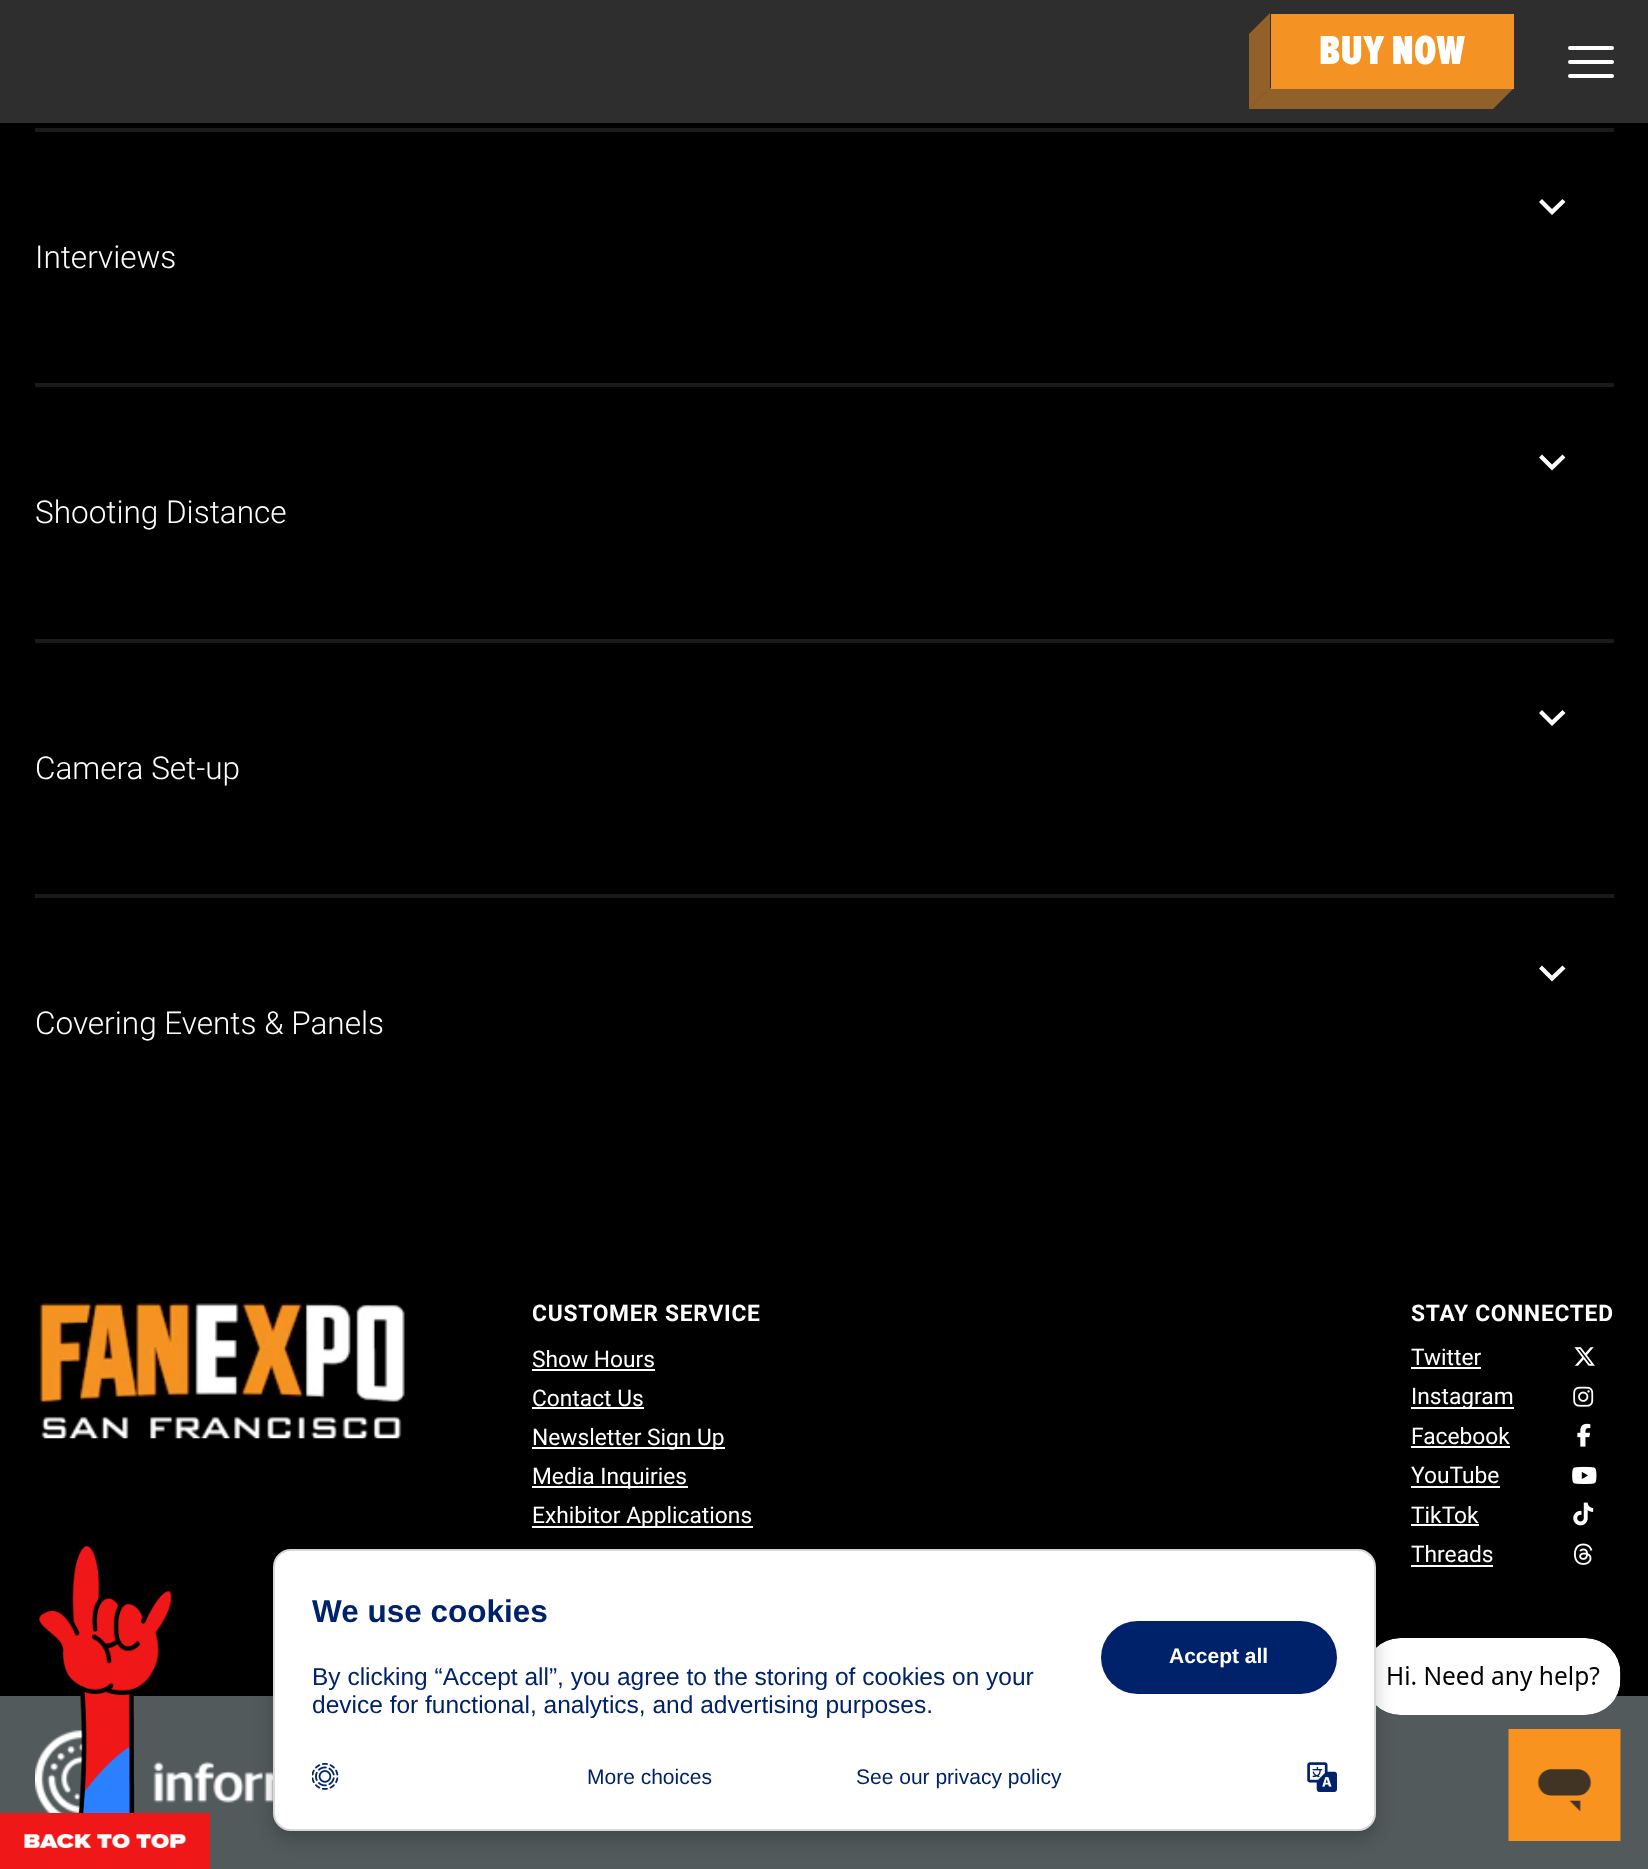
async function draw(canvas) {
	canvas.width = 1648;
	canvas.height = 1869;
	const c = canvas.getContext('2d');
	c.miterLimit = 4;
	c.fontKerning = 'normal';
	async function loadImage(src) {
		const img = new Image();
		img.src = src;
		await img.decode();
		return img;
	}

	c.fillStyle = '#000';
	c.fillRect(0, 0, 1648, 1869);
	c.fillStyle = '#2e2e2e';
	c.fillRect(0, 0, 1648, 123);
	c.fillStyle = '#f49323';
	c.fillRect(1271, 14, 243, 75);
	c.fillStyle = '#f4932380';
	c.beginPath();
	c.moveTo(1249, 34);
	c.lineTo(1270, 13);
	c.lineTo(1270, 88);
	c.lineTo(1249, 109);
	c.closePath();
	c.fill();
	c.letterSpacing = '0.5px';
	c.font = '900 42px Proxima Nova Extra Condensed';
	c.fillStyle = '#fff';
	c.fillText('BUY NOW', 1319, 64);
	c.fillStyle = '#f4932380';
	c.beginPath();
	c.moveTo(1270, 88);
	c.lineTo(1514, 88);
	c.lineTo(1493, 109);
	c.lineTo(1249, 109);
	c.closePath();
	c.fill();
	c.fillStyle = '#fff';
	c.beginPath();
	c.roundRect(1568, 46, 46, 4, 2);
	c.fill();
	c.beginPath();
	c.roundRect(1568, 60, 46, 4, 2);
	c.fill();
	c.beginPath();
	c.roundRect(1568, 74, 46, 4, 2);
	c.fill();
	c.fillStyle = '#525a5c';
	c.fillRect(0, 1696, 1648, 173);
	c.drawImage(await loadImage('img9.png'), 35, 1730, 238, 83);
	c.drawImage(await loadImage('img1.png'), 0, 1546, 210, 323);
	c.fillStyle = '#1a1a1a';
	c.fillRect(35, 128, 1579, 4);
	c.fillRect(35, 383, 1579, 4);
	c.fillStyle = '#fff';
	c.beginPath();
	c.moveTo(1562.5, 199);
	c.lineTo(1565.5, 202);
	c.lineTo(1552, 215);
	c.lineTo(1539, 202);
	c.lineTo(1542, 199);
	c.lineTo(1552, 209);
	c.closePath();
	c.fill();
	c.letterSpacing = '0px';
	c.font = '300 31.5px Roboto';
	c.fillText('Interviews', 35, 268);
	c.fillStyle = '#1a1a1a';
	c.fillRect(35, 639, 1579, 4);
	c.fillStyle = '#fff';
	c.beginPath();
	c.moveTo(1562.5, 454.5);
	c.lineTo(1565.5, 457.5);
	c.lineTo(1552, 470.5);
	c.lineTo(1539, 457.5);
	c.lineTo(1542, 454.5);
	c.lineTo(1552, 464.5);
	c.closePath();
	c.fill();
	c.fillText('Shooting Distance', 35, 523);
	c.fillStyle = '#1a1a1a';
	c.fillRect(35, 894, 1579, 4);
	c.fillStyle = '#fff';
	c.beginPath();
	c.moveTo(1562.5, 710);
	c.lineTo(1565.5, 713);
	c.lineTo(1552, 726);
	c.lineTo(1539, 713);
	c.lineTo(1542, 710);
	c.lineTo(1552, 720);
	c.closePath();
	c.fill();
	c.fillText('Camera Set-up', 35, 779);
	c.beginPath();
	c.moveTo(1562.5, 965.5);
	c.lineTo(1565.5, 968.5);
	c.lineTo(1552, 981.5);
	c.lineTo(1539, 968.5);
	c.lineTo(1542, 965.5);
	c.lineTo(1552, 975.5);
	c.closePath();
	c.fill();
	c.fillText('Covering Events & Panels', 35, 1034);
	c.drawImage(await loadImage('img2.png'), 35, 1298, 370, 141);
	c.letterSpacing = '0.75px';
	c.font = 'bold 22.75px Roboto';
	c.fillText('CUSTOMER SERVICE', 532, 1321);
	c.letterSpacing = '0px';
	c.font = '22.75px Roboto';
	c.fillText('Show Hours', 532, 1367);
	c.fillRect(532, 1369, 123, 2);
	c.fillText('Contact Us', 532, 1406);
	c.fillRect(532, 1407, 112, 2);
	c.fillRect(532, 1447, 193, 2);
	c.fillText('Newsletter Sign Up', 532, 1445);
	c.fillRect(532, 1486, 156, 2);
	c.fillText('Media Inquiries', 532, 1484);
	c.fillRect(532, 1526, 221, 2);
	c.fillText('Exhibitor Applications', 532, 1523);
	c.letterSpacing = '0.75px';
	c.font = 'bold 22.75px Roboto';
	c.fillText('STAY CONNECTED', 1411, 1321);
	c.letterSpacing = '0px';
	c.font = '22.75px Roboto';
	c.fillText('Twitter', 1411, 1365);
	c.fillRect(1411, 1367, 70, 2);
	c.drawImage(await loadImage('img3.png'), 1574, 1347, 21, 19);
	c.fillRect(1411, 1407, 103, 2);
	c.fillText('Instagram', 1411, 1404);
	c.drawImage(await loadImage('img4.png'), 1573, 1386, 21, 21);
	c.fillText('Facebook', 1411, 1444);
	c.fillRect(1411, 1446, 99, 2);
	c.drawImage(await loadImage('img5.png'), 1577, 1423, 14, 24);
	c.fillText('YouTube', 1411, 1483);
	c.fillRect(1411, 1486, 89, 2);
	c.drawImage(await loadImage('img6.png'), 1572, 1466, 25, 18);
	c.fillText('TikTok', 1411, 1523);
	c.fillRect(1411, 1524, 68, 2);
	c.drawImage(await loadImage('img7.png'), 1573, 1502, 21, 24);
	c.fillText('Threads', 1411, 1562);
	c.fillRect(1411, 1565, 82, 2);
	c.drawImage(await loadImage('img8.png'), 1574, 1543, 19, 22);
	c.drawImage(await loadImage('img10.png'), 1376, 1638, 245, 77);
	c.drawImage(await loadImage('img11.png'), 1508, 1729, 113, 112);
	c.fillStyle = '#00000033';
	c.filter = 'blur(9px)';
	c.beginPath();
	c.roundRect(273, 1558, 1103, 281, 18);
	c.fill();
	c.filter = 'none';
	c.fillStyle = '#fff';
	c.beginPath();
	c.roundRect(274, 1550, 1101, 280, 17);
	c.fill();
	c.strokeStyle = '#d8d8d8';
	c.lineWidth = 2;
	c.stroke();
	c.font = 'bold 31.5px Liberation Sans';
	c.fillStyle = '#00226a';
	c.fillText('We use cookies', 312, 1622);
	c.font = '24.5px Liberation Sans';
	c.fillText('By clicking “Accept all”, you agree to the storing of cookies on your', 312, 1685);
	c.fillText('device for functional, analytics, and advertising purposes.', 312, 1713);
	c.beginPath();
	c.roundRect(1101, 1621, 236, 73, 36.5);
	c.fill();
	c.font = 'bold 21px Liberation Sans';
	c.fillStyle = '#fff';
	c.fillText('Accept all', 1169, 1663);
	c.drawImage(await loadImage('img12.png'), 312, 1763, 27, 27);
	c.font = '21px Liberation Sans';
	c.fillStyle = '#00226a';
	c.fillText('More choices', 587, 1784);
	c.fillText('See our privacy policy', 856, 1784);
	c.drawImage(await loadImage('img13.png'), 1307, 1762, 30, 30);
}

draw(document.querySelector('canvas'));
